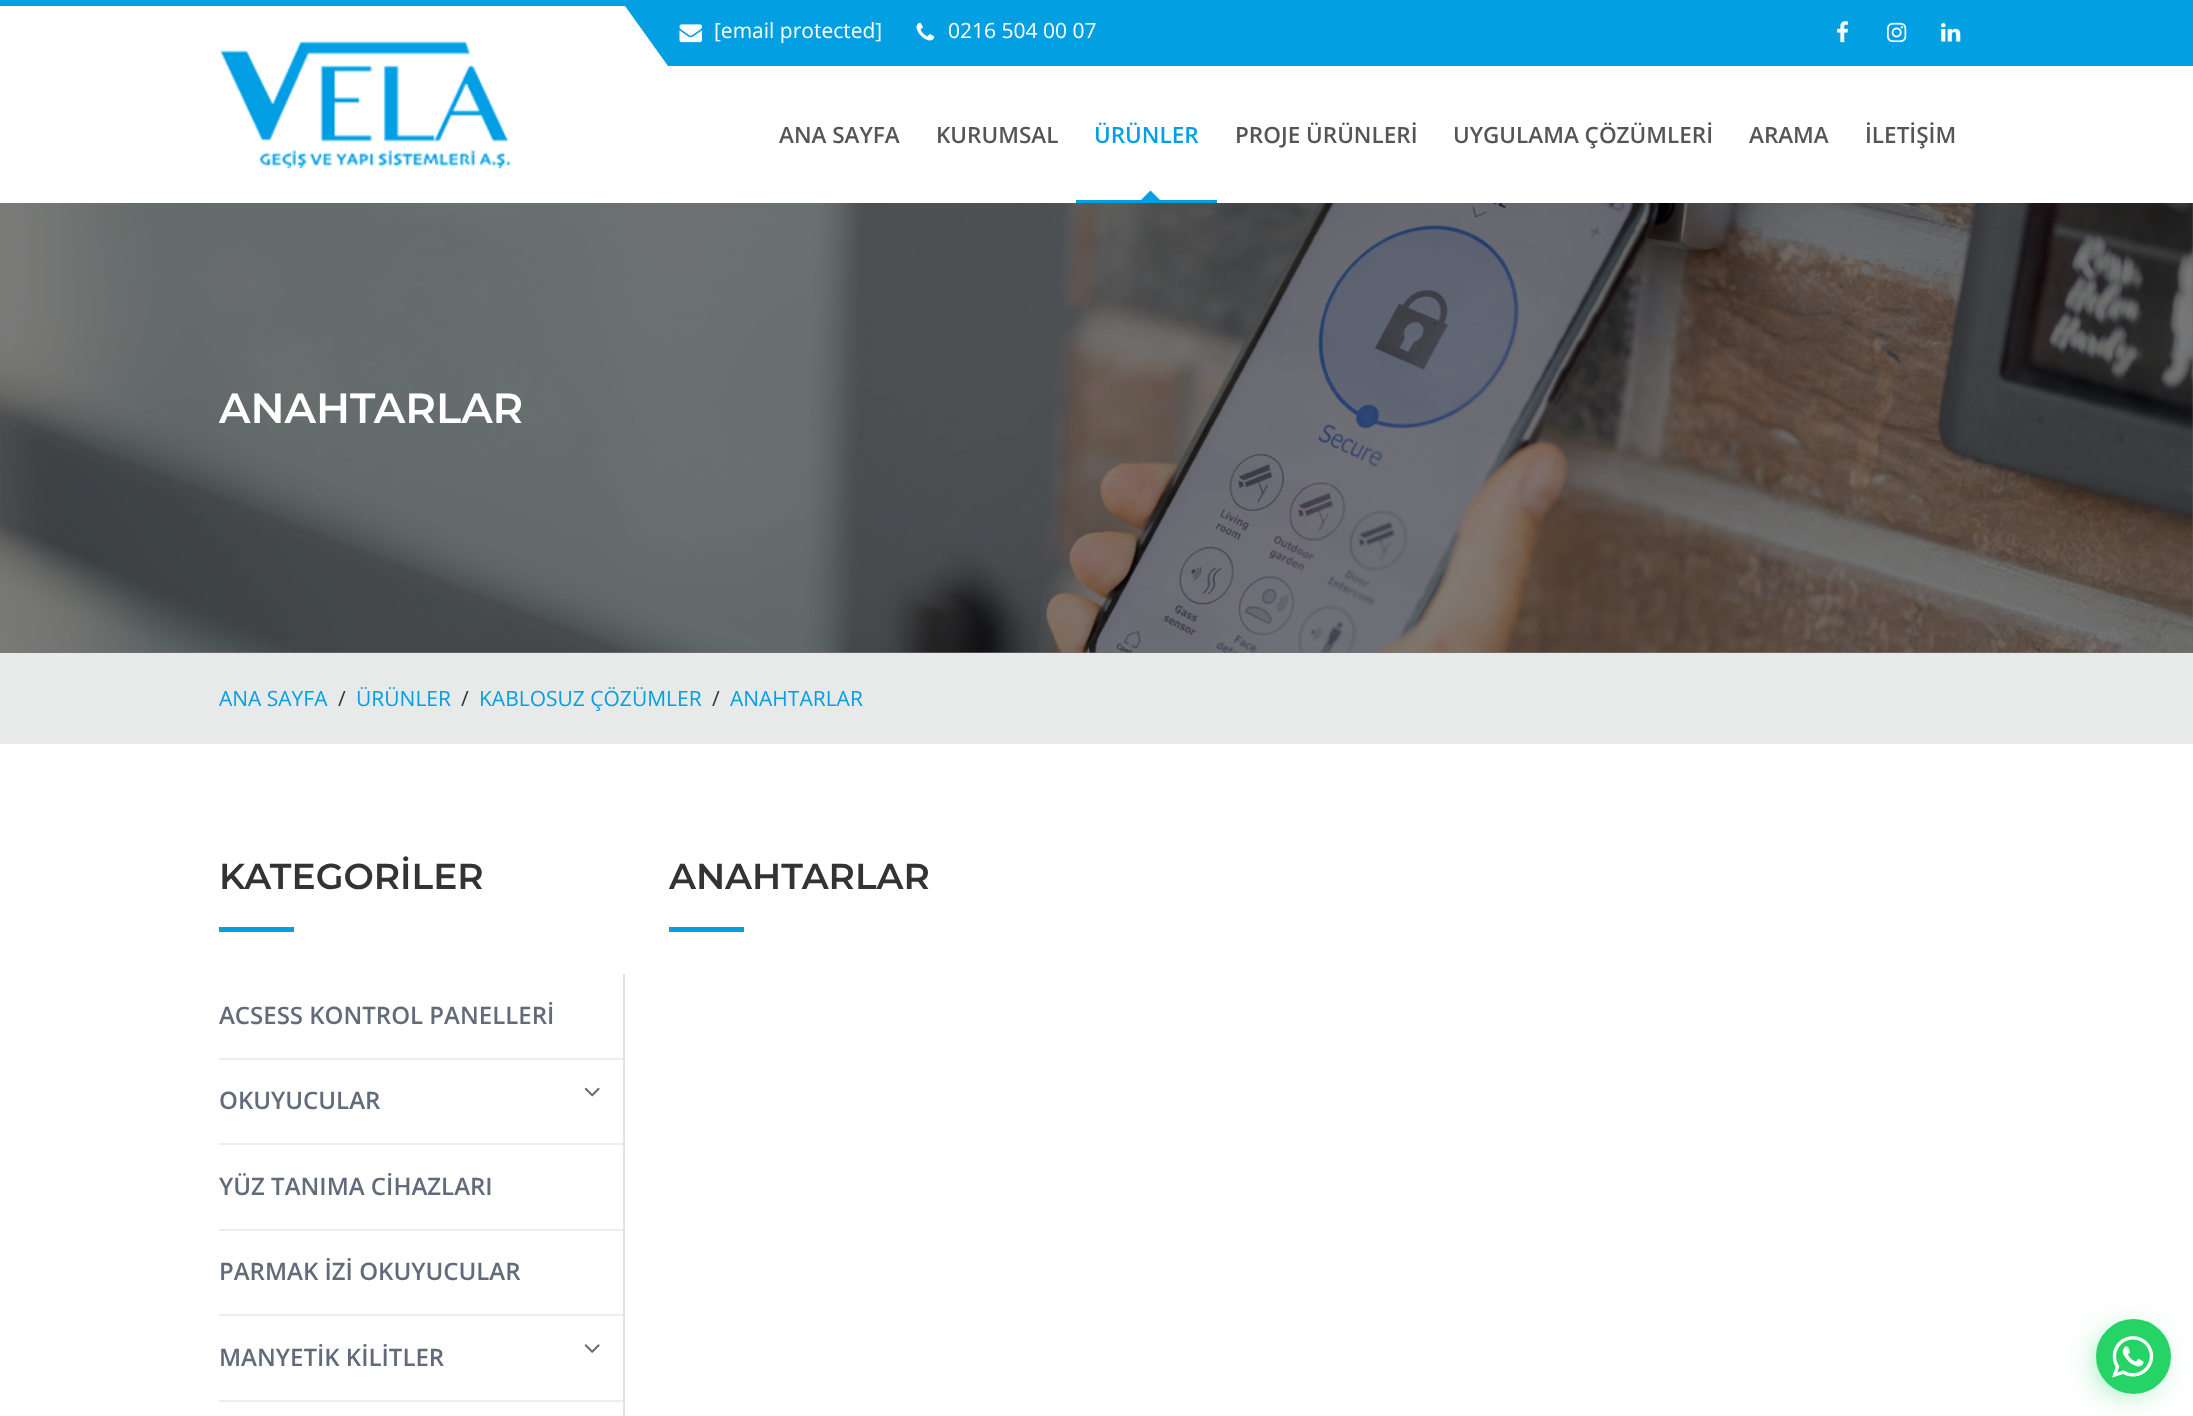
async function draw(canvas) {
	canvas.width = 2193;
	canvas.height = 1416;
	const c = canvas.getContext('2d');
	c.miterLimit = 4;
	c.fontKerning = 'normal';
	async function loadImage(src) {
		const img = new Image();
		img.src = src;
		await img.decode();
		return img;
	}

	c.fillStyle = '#7a7b7b';
	c.fillRect(0, 0, 2193, 1416);
	c.fillStyle = '#fff';
	c.fillRect(0, 6, 668, 60);
	c.fillStyle = '#039fe3';
	c.fillRect(0, 0, 2193, 6);
	c.beginPath();
	c.moveTo(625, 6);
	c.lineTo(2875, 6);
	c.lineTo(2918, 66);
	c.lineTo(668, 66);
	c.closePath();
	c.fill();
	c.drawImage(await loadImage('img1.png'), 679, 24, 23, 19);
	c.font = '21px Open Sans';
	c.fillStyle = '#fff';
	c.fillText('[email protected]', 714, 38);
	c.drawImage(await loadImage('img2.png'), 916, 22, 19, 19);
	c.fillText('0216 504 00 07', 948, 38);
	c.drawImage(await loadImage('img3.png'), 1837, 21, 12, 22);
	c.drawImage(await loadImage('img4.png'), 1887, 22, 20, 21);
	c.drawImage(await loadImage('img5.png'), 1941, 23, 20, 19);
	c.fillRect(0, 66, 2193, 137);
	c.drawImage(await loadImage('img6.png'), 220, 41, 291, 128);
	c.font = '600 22.5px Open Sans';
	c.fillStyle = '#555';
	c.fillText('ANA SAYFA', 779, 143);
	c.fillText('KURUMSAL', 936, 143);
	c.fillStyle = '#039fe3';
	c.fillText('ÜRÜNLER', 1094, 143);
	c.beginPath();
	c.moveTo(1162.5, 202.5);
	c.lineTo(1138.5, 202.5);
	c.lineTo(1150.5, 190.5);
	c.closePath();
	c.fill();
	c.fillRect(1076, 200, 141, 3);
	c.fillStyle = '#555';
	for (const [text, x, y] of [
		['PROJE ÜRÜNLERİ', 1235, 143],
		['UYGULAMA ÇÖZÜMLERİ', 1453, 143],
		['ARAMA', 1749, 143],
		['İLETİŞİM', 1865, 143],
	]) {
		c.fillText(text, x, y);
	}
	c.drawImage(await loadImage('img7.png'), 0, 203, 2193, 450);
	c.font = '600 42px Montserrat';
	c.fillStyle = '#fff';
	c.fillText('ANAHTARLAR', 219, 423);
	c.fillStyle = '#e8e9e9';
	c.fillRect(0, 653, 2193, 91);
	c.font = '21px Open Sans';
	c.fillStyle = '#039fe3';
	c.fillText('ANA SAYFA', 219, 706);
	c.fillStyle = '#333';
	c.fillText('/', 338, 706);
	c.fillStyle = '#039fe3';
	c.fillText('ÜRÜNLER', 356, 706);
	c.fillStyle = '#333';
	c.fillText('/', 461, 706);
	c.fillStyle = '#039fe3';
	c.fillText('KABLOSUZ ÇÖZÜMLER', 479, 706);
	c.fillStyle = '#333';
	c.fillText('/', 712, 706);
	c.fillStyle = '#039fe3';
	c.fillText('ANAHTARLAR', 730, 706);
	c.fillStyle = '#fff';
	c.fillRect(0, 744, 2193, 672);
	c.font = '600 36px Montserrat';
	c.fillStyle = '#333';
	c.fillText('KATEGORİLER', 219, 889);
	for (const [x, y, w, h, color] of [
		[219, 927, 75, 5, '#039fe3'],
		[623, 974, 2, 442, '#dfe4e6'],
		[219, 1058, 404, 2, '#eee'],
	]) {
		c.fillStyle = color;
		c.fillRect(x, y, w, h);
	}
	c.font = '600 24px Open Sans';
	c.fillStyle = '#626b7a';
	c.fillText('ACSESS KONTROL PANELLERİ', 219, 1024);
	c.fillStyle = '#eee';
	c.fillRect(219, 1143, 404, 2);
	c.fillStyle = '#626b7a';
	c.fillText('OKUYUCULAR', 219, 1109);
	c.drawImage(await loadImage('img8.png'), 584, 1087, 16, 10);
	c.fillStyle = '#eee';
	c.fillRect(219, 1229, 404, 2);
	c.fillStyle = '#626b7a';
	c.fillText('YÜZ TANIMA CİHAZLARI', 219, 1195);
	c.fillStyle = '#eee';
	c.fillRect(219, 1314, 404, 2);
	c.fillStyle = '#626b7a';
	c.fillText('PARMAK İZİ OKUYUCULAR', 219, 1280);
	c.fillStyle = '#eee';
	c.fillRect(219, 1400, 404, 2);
	c.fillStyle = '#626b7a';
	c.fillText('MANYETİK KİLİTLER', 219, 1366);
	c.drawImage(await loadImage('img9.png'), 584, 1344, 16, 9);
	c.font = '600 36px Montserrat';
	c.fillStyle = '#333';
	c.fillText('ANAHTARLAR', 669, 889);
	c.fillStyle = '#039fe3';
	c.fillRect(669, 927, 75, 5);
	c.fillStyle = '#25d366';
	c.filter = 'blur(18px)';
	c.beginPath();
	c.roundRect(2105, 1340, 45, 45, 22.5);
	c.fill();
	c.filter = 'none';
	c.beginPath();
	c.arc(2133.5, 1356.5, 36.5, 0, 2 * Math.PI);
	c.fill();
	c.strokeStyle = '#25d366';
	c.lineWidth = 2;
	c.stroke();
	c.drawImage(await loadImage('img10.png'), 2112, 1336, 42, 42);
}

draw(document.querySelector('canvas'));
